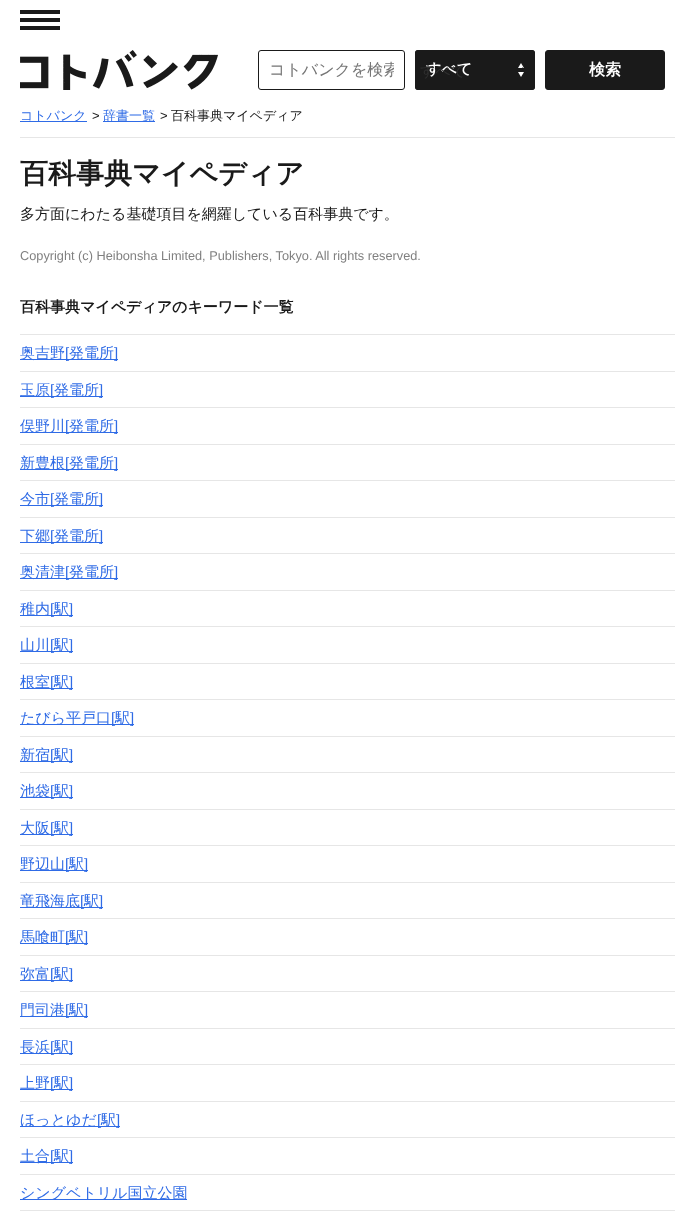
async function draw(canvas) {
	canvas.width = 695;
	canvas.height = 1228;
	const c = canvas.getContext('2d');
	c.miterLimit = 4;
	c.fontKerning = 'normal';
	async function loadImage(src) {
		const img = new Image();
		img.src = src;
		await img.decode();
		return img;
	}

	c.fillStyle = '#fff';
	c.fillRect(0, 0, 695, 1228);
	c.drawImage(await loadImage('img1.png'), 20, 10, 40, 20);
	c.drawImage(await loadImage('img2.png'), 20, 50, 198, 40);
	c.beginPath();
	c.roundRect(258.5, 50.5, 146, 39, 2.5);
	c.strokeStyle = '#1a1a1a';
	c.stroke();
	c.save();
	c.beginPath();
	c.rect(269, 60, 125, 21);
	c.clip();
	c.font = '500 16px WenQuanYi Zen Hei';
	c.fillStyle = '#757575';
	c.fillText('コトバンクを検索', 269, 75);
	c.restore();
	c.fillStyle = '#1a1a1a';
	c.beginPath();
	c.roundRect(415, 50, 120, 40, 3);
	c.fill();
	c.drawImage(await loadImage('img3.png'), 518, 63, 6, 14);
	c.beginPath();
	c.roundRect(415.5, 50.5, 119, 39, 2.5);
	c.stroke();
	c.font = 'bold 15px WenQuanYi Zen Hei';
	c.fillStyle = '#fff';
	c.fillText('すべて', 426, 74);
	c.beginPath();
	c.moveTo(522, 68);
	c.lineTo(526, 72);
	c.lineTo(530, 68);
	c.lineWidth = 2;
	c.stroke();
	c.font = '500 15px WenQuanYi Zen Hei';
	c.fillStyle = '#2e2e2e';
	c.fillText('すべて', 420, 76);
	c.fillStyle = '#1a1a1a';
	c.beginPath();
	c.roundRect(545.5, 50.5, 119, 39, 2.5);
	c.fill();
	c.lineWidth = 1;
	c.stroke();
	c.font = 'bold 16px WenQuanYi Zen Hei';
	c.fillStyle = '#fff';
	c.fillText('検索', 589, 75);
	c.fillStyle = '#2f6be6';
	c.fillRect(20, 121, 67, 1);
	c.font = '500 13px WenQuanYi Zen Hei';
	c.fillText('コトバンク', 20, 120);
	c.font = '13px Liberation Sans';
	c.fillStyle = '#1a1a1a';
	c.fillText('>', 92, 120);
	c.fillStyle = '#2f6be6';
	c.fillRect(103, 121, 52, 1);
	c.font = '500 13px WenQuanYi Zen Hei';
	c.fillText('辞書一覧', 103, 120);
	c.font = '13px Liberation Sans';
	c.fillStyle = '#1a1a1a';
	c.fillText('>', 160, 120);
	c.font = '500 13px WenQuanYi Zen Hei';
	c.fillText('百科事典マイペディア', 171, 120);
	c.fillStyle = '#e6e6e6';
	c.fillRect(20, 137, 655, 1);
	c.font = 'bold 28px WenQuanYi Zen Hei';
	c.fillStyle = '#1a1a1a';
	c.fillText('百科事典マイペディア', 20, 183);
	c.font = '500 15px WenQuanYi Zen Hei';
	c.fillText('多方面にわたる基礎項目を網羅している百科事典です。', 20, 219);
	c.font = '12.75px Liberation Sans';
	c.fillStyle = '#808080';
	c.fillText('Copyright (c) Heibonsha Limited, Publishers, Tokyo. All rights reserved.', 20, 260);
	c.font = 'bold 15px WenQuanYi Zen Hei';
	c.fillStyle = '#1a1a1a';
	c.fillText('百科事典マイペディアのキーワード一覧', 20, 312);
	c.fillStyle = '#e6e6e6';
	c.fillRect(20, 334, 655, 1);
	c.fillStyle = '#2f6be6';
	c.fillRect(20, 359, 98, 1);
	c.font = '500 15px WenQuanYi Zen Hei';
	c.fillText('奥吉野', 20, 358);
	c.font = '15px Liberation Sans';
	c.fillText('[', 65, 358);
	c.font = '500 15px WenQuanYi Zen Hei';
	c.fillText('発電所', 69, 358);
	c.font = '15px Liberation Sans';
	c.fillText(']', 114, 358);
	c.fillStyle = '#e6e6e6';
	c.fillRect(20, 371, 655, 1);
	c.fillStyle = '#2f6be6';
	c.fillRect(20, 396, 83, 1);
	c.font = '500 15px WenQuanYi Zen Hei';
	c.fillText('玉原', 20, 395);
	c.font = '15px Liberation Sans';
	c.fillText('[', 50, 395);
	c.font = '500 15px WenQuanYi Zen Hei';
	c.fillText('発電所', 54, 395);
	c.font = '15px Liberation Sans';
	c.fillText(']', 99, 395);
	c.fillStyle = '#e6e6e6';
	c.fillRect(20, 407, 655, 1);
	c.fillStyle = '#2f6be6';
	c.fillRect(20, 432, 98, 1);
	c.font = '500 15px WenQuanYi Zen Hei';
	c.fillText('俣野川', 20, 431);
	c.font = '15px Liberation Sans';
	c.fillText('[', 65, 431);
	c.font = '500 15px WenQuanYi Zen Hei';
	c.fillText('発電所', 69, 431);
	c.font = '15px Liberation Sans';
	c.fillText(']', 114, 431);
	c.fillStyle = '#e6e6e6';
	c.fillRect(20, 444, 655, 1);
	c.fillStyle = '#2f6be6';
	c.fillRect(20, 469, 98, 1);
	c.font = '500 15px WenQuanYi Zen Hei';
	c.fillText('新豊根', 20, 468);
	c.font = '15px Liberation Sans';
	c.fillText('[', 65, 468);
	c.font = '500 15px WenQuanYi Zen Hei';
	c.fillText('発電所', 69, 468);
	c.font = '15px Liberation Sans';
	c.fillText(']', 114, 468);
	c.fillStyle = '#e6e6e6';
	c.fillRect(20, 480, 655, 1);
	c.fillStyle = '#2f6be6';
	c.fillRect(20, 505, 83, 1);
	c.font = '500 15px WenQuanYi Zen Hei';
	c.fillText('今市', 20, 504);
	c.font = '15px Liberation Sans';
	c.fillText('[', 50, 504);
	c.font = '500 15px WenQuanYi Zen Hei';
	c.fillText('発電所', 54, 504);
	c.font = '15px Liberation Sans';
	c.fillText(']', 99, 504);
	c.fillStyle = '#e6e6e6';
	c.fillRect(20, 517, 655, 1);
	c.fillStyle = '#2f6be6';
	c.fillRect(20, 542, 83, 1);
	c.font = '500 15px WenQuanYi Zen Hei';
	c.fillText('下郷', 20, 541);
	c.font = '15px Liberation Sans';
	c.fillText('[', 50, 541);
	c.font = '500 15px WenQuanYi Zen Hei';
	c.fillText('発電所', 54, 541);
	c.font = '15px Liberation Sans';
	c.fillText(']', 99, 541);
	c.fillStyle = '#e6e6e6';
	c.fillRect(20, 553, 655, 1);
	c.fillStyle = '#2f6be6';
	c.fillRect(20, 578, 98, 1);
	c.font = '500 15px WenQuanYi Zen Hei';
	c.fillText('奥清津', 20, 577);
	c.font = '15px Liberation Sans';
	c.fillText('[', 65, 577);
	c.font = '500 15px WenQuanYi Zen Hei';
	c.fillText('発電所', 69, 577);
	c.font = '15px Liberation Sans';
	c.fillText(']', 114, 577);
	c.fillStyle = '#e6e6e6';
	c.fillRect(20, 590, 655, 1);
	c.fillStyle = '#2f6be6';
	c.fillRect(20, 615, 53, 1);
	c.font = '500 15px WenQuanYi Zen Hei';
	c.fillText('稚内', 20, 614);
	c.font = '15px Liberation Sans';
	c.fillText('[', 50, 614);
	c.font = '500 15px WenQuanYi Zen Hei';
	c.fillText('駅', 54, 614);
	c.font = '15px Liberation Sans';
	c.fillText(']', 69, 614);
	c.fillStyle = '#e6e6e6';
	c.fillRect(20, 626, 655, 1);
	c.fillStyle = '#2f6be6';
	c.fillRect(20, 651, 53, 1);
	c.font = '500 15px WenQuanYi Zen Hei';
	c.fillText('山川', 20, 650);
	c.font = '15px Liberation Sans';
	c.fillText('[', 50, 650);
	c.font = '500 15px WenQuanYi Zen Hei';
	c.fillText('駅', 54, 650);
	c.font = '15px Liberation Sans';
	c.fillText(']', 69, 650);
	c.fillStyle = '#e6e6e6';
	c.fillRect(20, 663, 655, 1);
	c.fillStyle = '#2f6be6';
	c.fillRect(20, 688, 53, 1);
	c.font = '500 15px WenQuanYi Zen Hei';
	c.fillText('根室', 20, 687);
	c.font = '15px Liberation Sans';
	c.fillText('[', 50, 687);
	c.font = '500 15px WenQuanYi Zen Hei';
	c.fillText('駅', 54, 687);
	c.font = '15px Liberation Sans';
	c.fillText(']', 69, 687);
	c.fillStyle = '#e6e6e6';
	c.fillRect(20, 699, 655, 1);
	c.fillStyle = '#2f6be6';
	c.fillRect(20, 724, 114, 1);
	c.font = '500 15px WenQuanYi Zen Hei';
	c.fillText('たびら平戸口', 20, 723);
	c.font = '15px Liberation Sans';
	c.fillText('[', 111, 723);
	c.font = '500 15px WenQuanYi Zen Hei';
	c.fillText('駅', 115, 723);
	c.font = '15px Liberation Sans';
	c.fillText(']', 130, 723);
	c.fillStyle = '#e6e6e6';
	c.fillRect(20, 736, 655, 1);
	c.fillStyle = '#2f6be6';
	c.fillRect(20, 761, 53, 1);
	c.font = '500 15px WenQuanYi Zen Hei';
	c.fillText('新宿', 20, 760);
	c.font = '15px Liberation Sans';
	c.fillText('[', 50, 760);
	c.font = '500 15px WenQuanYi Zen Hei';
	c.fillText('駅', 54, 760);
	c.font = '15px Liberation Sans';
	c.fillText(']', 69, 760);
	c.fillStyle = '#e6e6e6';
	c.fillRect(20, 772, 655, 1);
	c.fillStyle = '#2f6be6';
	c.fillRect(20, 797, 53, 1);
	c.font = '500 15px WenQuanYi Zen Hei';
	c.fillText('池袋', 20, 796);
	c.font = '15px Liberation Sans';
	c.fillText('[', 50, 796);
	c.font = '500 15px WenQuanYi Zen Hei';
	c.fillText('駅', 54, 796);
	c.font = '15px Liberation Sans';
	c.fillText(']', 69, 796);
	c.fillStyle = '#e6e6e6';
	c.fillRect(20, 809, 655, 1);
	c.fillStyle = '#2f6be6';
	c.fillRect(20, 834, 53, 1);
	c.font = '500 15px WenQuanYi Zen Hei';
	c.fillText('大阪', 20, 833);
	c.font = '15px Liberation Sans';
	c.fillText('[', 50, 833);
	c.font = '500 15px WenQuanYi Zen Hei';
	c.fillText('駅', 54, 833);
	c.font = '15px Liberation Sans';
	c.fillText(']', 69, 833);
	c.fillStyle = '#e6e6e6';
	c.fillRect(20, 845, 655, 1);
	c.fillStyle = '#2f6be6';
	c.fillRect(20, 870, 68, 1);
	c.font = '500 15px WenQuanYi Zen Hei';
	c.fillText('野辺山', 20, 869);
	c.font = '15px Liberation Sans';
	c.fillText('[', 65, 869);
	c.font = '500 15px WenQuanYi Zen Hei';
	c.fillText('駅', 69, 869);
	c.font = '15px Liberation Sans';
	c.fillText(']', 84, 869);
	c.fillStyle = '#e6e6e6';
	c.fillRect(20, 882, 655, 1);
	c.fillStyle = '#2f6be6';
	c.fillRect(20, 907, 83, 1);
	c.font = '500 15px WenQuanYi Zen Hei';
	c.fillText('竜飛海底', 20, 906);
	c.font = '15px Liberation Sans';
	c.fillText('[', 80, 906);
	c.font = '500 15px WenQuanYi Zen Hei';
	c.fillText('駅', 84, 906);
	c.font = '15px Liberation Sans';
	c.fillText(']', 99, 906);
	c.fillStyle = '#e6e6e6';
	c.fillRect(20, 918, 655, 1);
	c.fillStyle = '#2f6be6';
	c.fillRect(20, 943, 68, 1);
	c.font = '500 15px WenQuanYi Zen Hei';
	c.fillText('馬喰町', 20, 942);
	c.font = '15px Liberation Sans';
	c.fillText('[', 65, 942);
	c.font = '500 15px WenQuanYi Zen Hei';
	c.fillText('駅', 69, 942);
	c.font = '15px Liberation Sans';
	c.fillText(']', 84, 942);
	c.fillStyle = '#e6e6e6';
	c.fillRect(20, 955, 655, 1);
	c.fillStyle = '#2f6be6';
	c.fillRect(20, 980, 53, 1);
	c.font = '500 15px WenQuanYi Zen Hei';
	c.fillText('弥富', 20, 979);
	c.font = '15px Liberation Sans';
	c.fillText('[', 50, 979);
	c.font = '500 15px WenQuanYi Zen Hei';
	c.fillText('駅', 54, 979);
	c.font = '15px Liberation Sans';
	c.fillText(']', 69, 979);
	c.fillStyle = '#e6e6e6';
	c.fillRect(20, 991, 655, 1);
	c.fillStyle = '#2f6be6';
	c.fillRect(20, 1016, 68, 1);
	c.font = '500 15px WenQuanYi Zen Hei';
	c.fillText('門司港', 20, 1015);
	c.font = '15px Liberation Sans';
	c.fillText('[', 65, 1015);
	c.font = '500 15px WenQuanYi Zen Hei';
	c.fillText('駅', 69, 1015);
	c.font = '15px Liberation Sans';
	c.fillText(']', 84, 1015);
	c.fillStyle = '#e6e6e6';
	c.fillRect(20, 1028, 655, 1);
	c.fillStyle = '#2f6be6';
	c.fillRect(20, 1053, 53, 1);
	c.font = '500 15px WenQuanYi Zen Hei';
	c.fillText('長浜', 20, 1052);
	c.font = '15px Liberation Sans';
	c.fillText('[', 50, 1052);
	c.font = '500 15px WenQuanYi Zen Hei';
	c.fillText('駅', 54, 1052);
	c.font = '15px Liberation Sans';
	c.fillText(']', 69, 1052);
	c.fillStyle = '#e6e6e6';
	c.fillRect(20, 1064, 655, 1);
	c.fillStyle = '#2f6be6';
	c.fillRect(20, 1089, 53, 1);
	c.font = '500 15px WenQuanYi Zen Hei';
	c.fillText('上野', 20, 1088);
	c.font = '15px Liberation Sans';
	c.fillText('[', 50, 1088);
	c.font = '500 15px WenQuanYi Zen Hei';
	c.fillText('駅', 54, 1088);
	c.font = '15px Liberation Sans';
	c.fillText(']', 69, 1088);
	c.fillStyle = '#e6e6e6';
	c.fillRect(20, 1101, 655, 1);
	c.fillStyle = '#2f6be6';
	c.fillRect(20, 1126, 100, 1);
	c.font = '500 15px WenQuanYi Zen Hei';
	c.fillText('ほっとゆだ', 20, 1125);
	c.font = '15px Liberation Sans';
	c.fillText('[', 97, 1125);
	c.font = '500 15px WenQuanYi Zen Hei';
	c.fillText('駅', 101, 1125);
	c.font = '15px Liberation Sans';
	c.fillText(']', 116, 1125);
	c.fillStyle = '#e6e6e6';
	c.fillRect(20, 1137, 655, 1);
	c.fillStyle = '#2f6be6';
	c.fillRect(20, 1162, 53, 1);
	c.font = '500 15px WenQuanYi Zen Hei';
	c.fillText('土合', 20, 1161);
	c.font = '15px Liberation Sans';
	c.fillText('[', 50, 1161);
	c.font = '500 15px WenQuanYi Zen Hei';
	c.fillText('駅', 54, 1161);
	c.font = '15px Liberation Sans';
	c.fillText(']', 69, 1161);
	c.fillStyle = '#e6e6e6';
	c.fillRect(20, 1174, 655, 1);
	c.fillStyle = '#2f6be6';
	c.fillRect(20, 1199, 167, 1);
	c.font = '500 15px WenQuanYi Zen Hei';
	c.fillText('シングベトリル国立公園', 20, 1198);
	c.fillStyle = '#e6e6e6';
	c.fillRect(20, 1210, 655, 1);
}

draw(document.querySelector('canvas'));
